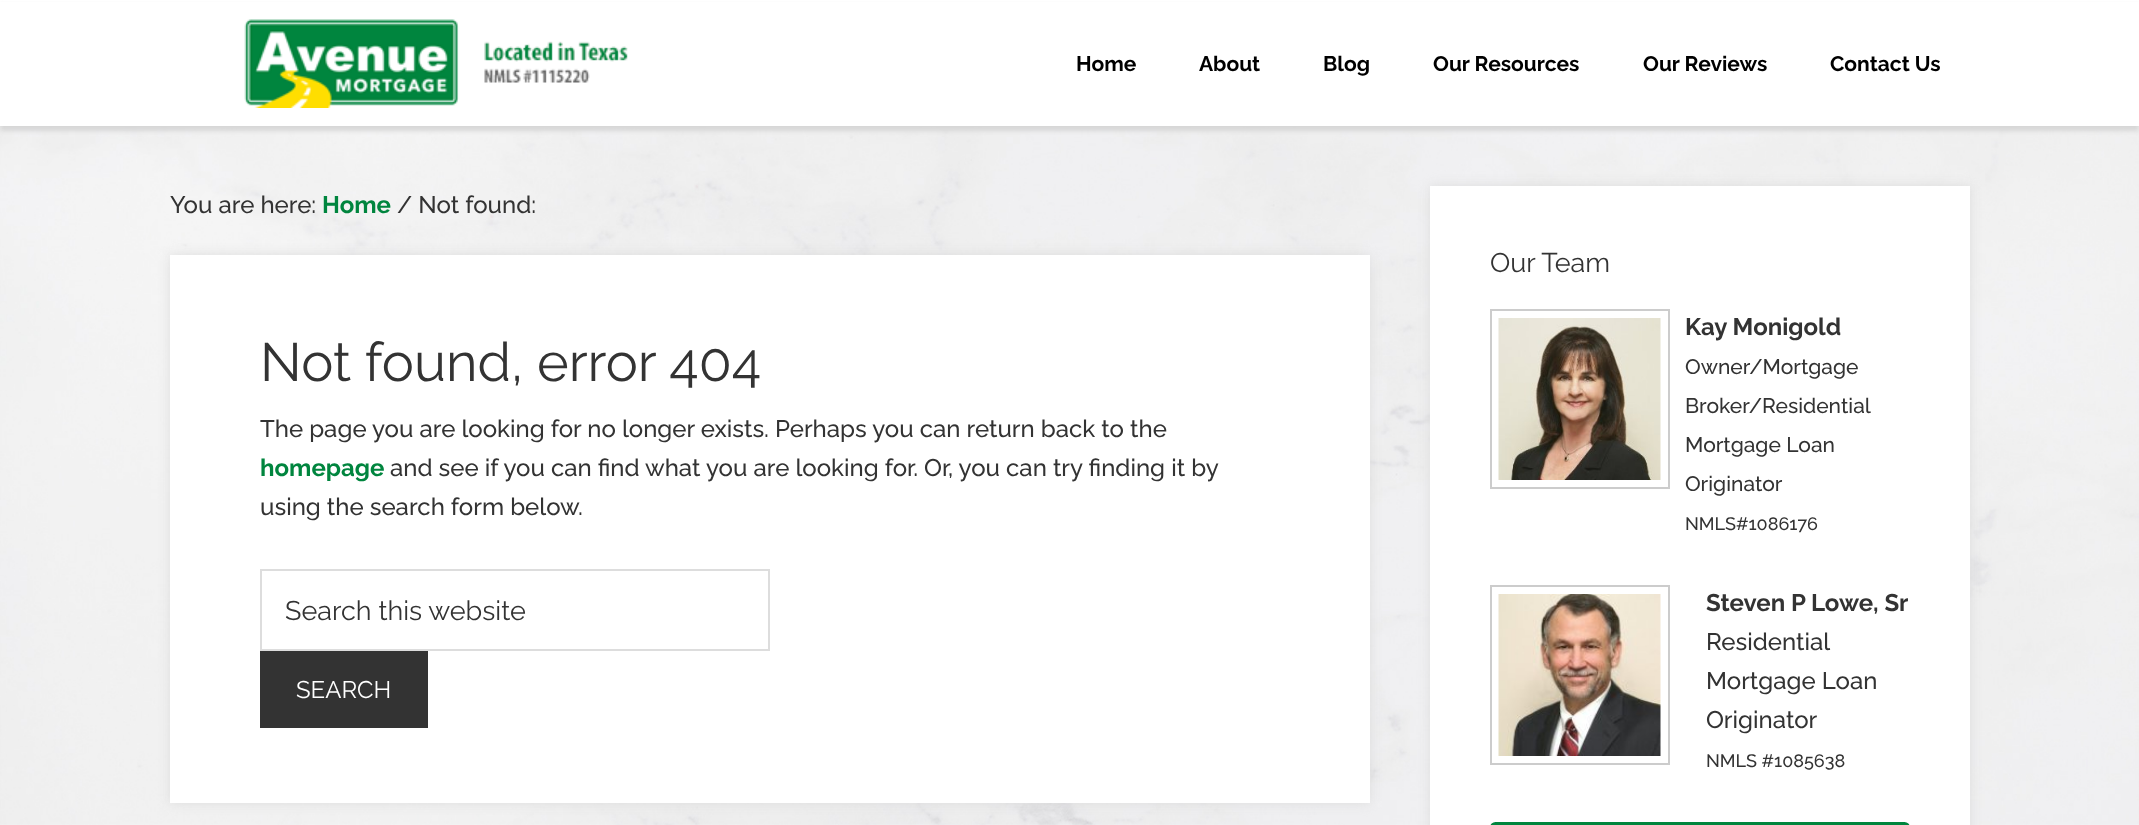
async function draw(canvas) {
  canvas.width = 2139;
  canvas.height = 825;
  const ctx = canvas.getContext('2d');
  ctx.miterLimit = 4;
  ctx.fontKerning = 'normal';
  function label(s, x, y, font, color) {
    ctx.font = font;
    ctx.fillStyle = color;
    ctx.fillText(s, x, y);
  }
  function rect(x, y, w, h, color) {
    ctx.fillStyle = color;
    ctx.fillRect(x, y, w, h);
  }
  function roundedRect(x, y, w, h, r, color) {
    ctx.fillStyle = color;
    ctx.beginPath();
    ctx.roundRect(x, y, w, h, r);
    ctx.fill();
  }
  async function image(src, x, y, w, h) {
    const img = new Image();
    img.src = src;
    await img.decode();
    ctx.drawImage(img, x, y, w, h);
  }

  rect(0, 0, 2139, 825, '#fff');
  await image('assets/img1.png', 0, 126, 2139, 699);
  ctx.fillStyle = '#d7d7d7';
  ctx.filter = 'blur(2px)';
  ctx.beginPath();
  ctx.rect(0, 5, 2139, 126);
  ctx.fill();
  ctx.filter = 'none';
  rect(0, 2, 2139, 124, '#fff');
  await image('assets/img2.png', 244, 19, 384, 89);
  label('Home', 1076, 71, 'bold 21px Raleway', '#000');
  label('About', 1199, 71, 'bold 21px Raleway', '#000');
  label('Blog', 1323, 71, 'bold 21px Raleway', '#000');
  label('Our Resources', 1433, 71, 'bold 21px Raleway', '#000');
  label('Our Reviews', 1643, 71, 'bold 21px Raleway', '#000');
  label('Contact Us', 1830, 71, 'bold 21px Raleway', '#000');
  label('You are here:', 170, 213, '500 24px Raleway', '#333');
  label('Home', 322, 213, 'bold 24px Raleway', '#00853e');
  label('/ Not found:', 397, 213, '500 24px Raleway', '#333');
  ctx.fillStyle = '#ddd';
  ctx.filter = 'blur(6px)';
  ctx.beginPath();
  ctx.rect(170, 255, 1200, 548);
  ctx.fill();
  ctx.filter = 'none';
  rect(170, 255, 1200, 548, '#fff');
  label('Not found, error 404', 260, 381, '54px Raleway', '#333');
  label('The page you are looking for no longer exists. Perhaps you can return back to the', 260, 437, '500 24px Raleway', '#333');
  label('homepage', 260, 476, 'bold 24px Raleway', '#00853e');
  label('and see if you can find what you are looking for. Or, you can try finding it by', 390, 476, '500 24px Raleway', '#333');
  label('using the search form below.', 260, 515, '500 24px Raleway', '#333');
  ctx.strokeStyle = '#ddd';
  ctx.lineWidth = 2;
  ctx.strokeRect(261, 570, 508, 80);
  label('Search this website', 285, 620, '27px Raleway', '#333');
  rect(260, 651, 168, 77, '#333');
  label('SEARCH', 296, 698, '24px Raleway', '#fff');
  ctx.fillStyle = '#ddd';
  ctx.filter = 'blur(6px)';
  ctx.beginPath();
  ctx.rect(1430, 186, 540, 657);
  ctx.fill();
  ctx.filter = 'none';
  rect(1430, 186, 540, 639, '#fff');
  label('Our Team', 1490, 272, '27px Raleway', '#333');
  ctx.strokeStyle = '#ccc';
  ctx.strokeRect(1491, 310, 178, 178);
  await image('assets/img3.png', 1498, 318, 163, 162);
  label('Kay Monigold', 1685, 335, 'bold 24px Raleway', '#333');
  label('Owner/Mortgage', 1685, 374, '500 21px Raleway', '#333');
  label('Broker/Residential', 1685, 413, '500 21px Raleway', '#333');
  label('Mortgage Loan', 1685, 452, '500 21px Raleway', '#333');
  label('Originator', 1685, 491, '500 21px Raleway', '#333');
  label('NMLS#1086176', 1685, 530, '500 18px Raleway', '#333');
  ctx.strokeRect(1491, 586, 178, 178);
  await image('assets/img4.png', 1498, 594, 163, 162);
  label('Steven P Lowe, Sr', 1706, 611, 'bold 24px Raleway', '#333');
  label('Residential', 1706, 650, '500 24px Raleway', '#333');
  label('Mortgage Loan', 1706, 689, '500 24px Raleway', '#333');
  label('Originator', 1706, 728, '500 24px Raleway', '#333');
  label('NMLS #1085638', 1706, 767, '500 18px Raleway', '#333');
  roundedRect(1490, 822, 420, 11, 8, '#00853e');
}

draw(document.querySelector('canvas'));
